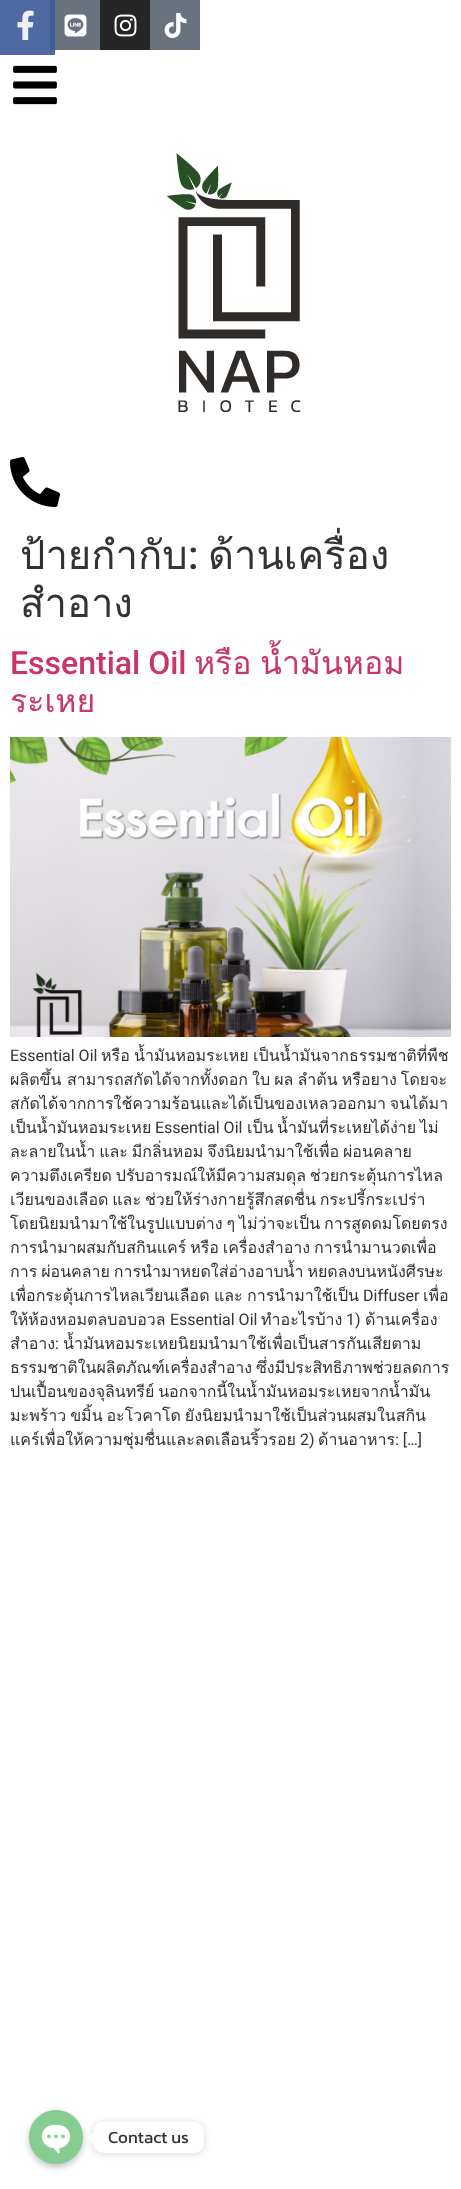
async function draw(canvas) {
  canvas.width = 461;
  canvas.height = 2189;
  const ctx = canvas.getContext('2d');
  ctx.miterLimit = 4;
  ctx.fontKerning = 'normal';
  function label(s, x, y, font, color) {
    ctx.font = font;
    ctx.fillStyle = color;
    ctx.fillText(s, x, y);
  }
  function rect(x, y, w, h, color) {
    ctx.fillStyle = color;
    ctx.fillRect(x, y, w, h);
  }
  function roundedRect(x, y, w, h, r, color) {
    ctx.fillStyle = color;
    ctx.beginPath();
    ctx.roundRect(x, y, w, h, r);
    ctx.fill();
  }
  async function image(src, x, y, w, h) {
    const img = new Image();
    img.src = src;
    await img.decode();
    ctx.drawImage(img, x, y, w, h);
  }
  let path;

  rect(0, 0, 461, 2189, '#fff');
  rect(0, 0, 55, 55, '#4f6aa2');
  await image('assets/img1.png', 17, 10, 17, 30);
  rect(55, 0, 45, 50, '#69727d');
  rect(50, 0, 5, 50, '#405c95');
  await image('assets/img2.png', 64, 14, 23, 23);
  rect(100, 0, 50, 50, '#262626');
  await image('assets/img3.png', 114, 14, 23, 23);
  rect(150, 0, 50, 50, '#69727d');
  await image('assets/img4.png', 164, 13, 23, 25);
  await image('assets/img5.png', 13, 65, 44, 40);
  await image('assets/img6.png', 167, 153, 134, 259);
  await image('assets/img7.png', 10, 457, 50, 50);
  label('ป้ายกำกับ', 20, 569, '40px Loma', '#333');
  label(':', 188, 569, '500 40px Roboto', '#333');
  label('ด้านเครื่อง', 208, 569, '40px Loma', '#333');
  label('สำอาง', 20, 617, '40px Loma', '#333');
  label('Essential Oil', 10, 674, '500 32px Roboto', '#c36');
  label('หรือ', 194, 674, '32px Loma', '#c36');
  label('น้ำมันหอม', 260, 674, '32px Loma', '#c36');
  label('ระเหย', 10, 712, '32px Loma', '#c36');
  await image('assets/img8.png', 10, 737, 441, 300);
  label('Essential Oil', 10, 1061, '16px Roboto', '#333');
  label('หรือ', 101, 1061, '16px Loma', '#333');
  label('น้ำมันหอมระเหย', 134, 1061, '16px Loma', '#333');
  label('เป็นน้ำมันจากธรรมชาติที่พืช', 253, 1061, '16px Loma', '#333');
  label('ผลิตขึ้น', 10, 1085, '16px Loma', '#333');
  ctx.wordSpacing = '-1.25px';
  label('สามารถสกัดได้จากทั้งดอก ใบ ผล ลำต้น หรือยาง โดยจะ', 67, 1085, '16px Loma', '#333');
  ctx.wordSpacing = '-1.5px';
  label('สกัดได้จากการใช้ความร้อนและได้เป็นของเหลวออกมา จนได้มา', 10, 1109, '16px Loma', '#333');
  ctx.wordSpacing = '0px';
  label('เป็นน้ำมันหอมระเหย', 10, 1133, '16px Loma', '#333');
  label('Essential Oil', 155, 1133, '16px Roboto', '#333');
  label('เป็น', 247, 1133, '16px Loma', '#333');
  label('น้ำมันที่ระเหยได้ง่าย', 277, 1133, '16px Loma', '#333');
  label('ไม่', 420, 1133, '16px Loma', '#333');
  ctx.wordSpacing = '-1.5px';
  label('ละลายในน้ำ และ มีกลิ่นหอม จึงนิยมนำมาใช้เพื่อ ผ่อนคลาย', 10, 1157, '16px Loma', '#333');
  label('ความตึงเครียด ปรับอารมณ์ให้มีความสมดุล ช่วยกระตุ้นการไหล', 10, 1181, '16px Loma', '#333');
  label('เวียนของเลือด และ ช่วยให้ร่างกายรู้สึกสดชื่น กระปรี้กระเปร่า', 10, 1205, '16px Loma', '#333');
  label('โดยนิยมนำมาใช้ในรูปแบบต่าง ๆ ไม่ว่าจะเป็น การสูดดมโดยตรง', 10, 1229, '16px Loma', '#333');
  label('การนำมาผสมกับสกินแคร์ หรือ เครื่องสำอาง การนำมานวดเพื่อ', 10, 1253, '16px Loma', '#333');
  label('การ ผ่อนคลาย การนำมาหยดใส่อ่างอาบน้ำ หยดลงบนหนังศีรษะ', 10, 1277, '16px Loma', '#333');
  ctx.wordSpacing = '-1px';
  label('เพื่อกระตุ้นการไหลเวียนเลือด และ การนำมาใช้เป็น', 10, 1301, '16px Loma', '#333');
  ctx.wordSpacing = '0px';
  label('Diffuser', 363, 1301, '16px Roboto', '#333');
  label('เพื่อ', 423, 1301, '16px Loma', '#333');
  label('ให้ห้องหอมตลบอบอวล', 10, 1325, '16px Loma', '#333');
  label('Essential Oil', 170, 1325, '16px Roboto', '#333');
  label('ทำอะไรบ้าง', 261, 1325, '16px Loma', '#333');
  label('1)', 346, 1325, '16px Roboto', '#333');
  label('ด้านเครื่อง', 365, 1325, '16px Loma', '#333');
  label('สำอาง', 10, 1349, '16px Loma', '#333');
  label(':', 55, 1349, '16px Roboto', '#333');
  label('น้ำมันหอมระเหยนิยมนำมาใช้เพื่อเป็นสารกันเสียตาม', 63, 1349, '16px Loma', '#333');
  ctx.wordSpacing = '-1.5px';
  label('ธรรมชาติในผลิตภัณฑ์เครื่องสำอาง ซึ่งมีประสิทธิภาพช่วยลดการ', 10, 1373, '16px Loma', '#333');
  label('ปนเปื้อนของจุลินทรีย์ นอกจากนี้ในน้ำมันหอมระเหยจากน้ำมัน', 10, 1397, '16px Loma', '#333');
  label('มะพร้าว ขมิ้น อะโวคาโด ยังนิยมนำมาใช้เป็นส่วนผสมในสกิน', 10, 1421, '16px Loma', '#333');
  ctx.wordSpacing = '0px';
  label('แคร์เพื่อให้ความชุ่มชื่นและลดเลือนริ้วรอย', 10, 1445, '16px Loma', '#333');
  label('2)', 300, 1445, '16px Roboto', '#333');
  label('ด้านอาหาร', 318, 1445, '16px Loma', '#333');
  label(': […]', 395, 1445, '16px Roboto', '#333');
  ctx.fillStyle = '#00000026';
  ctx.filter = 'blur(4px)';
  ctx.beginPath();
  ctx.roundRect(93, 2123, 111, 31, 10);
  ctx.fill();
  ctx.filter = 'none';
  ctx.fillStyle = '#fff';
  path = new Path2D('M93 2132.5V2142.5L88 2137.5Z');
  ctx.fill(path);
  ctx.fillStyle = '#00000040';
  ctx.filter = 'blur(3px)';
  ctx.beginPath();
  ctx.roundRect(29, 2113, 54, 54, 27);
  ctx.fill();
  ctx.filter = 'none';
  await image('assets/img9.png', 29, 2110, 54, 54);
  roundedRect(93, 2122, 111, 31, 10, '#fff');
  label('Contact us', 108, 2143, '17px Kanit', '#333');
}

draw(document.querySelector('canvas'));
